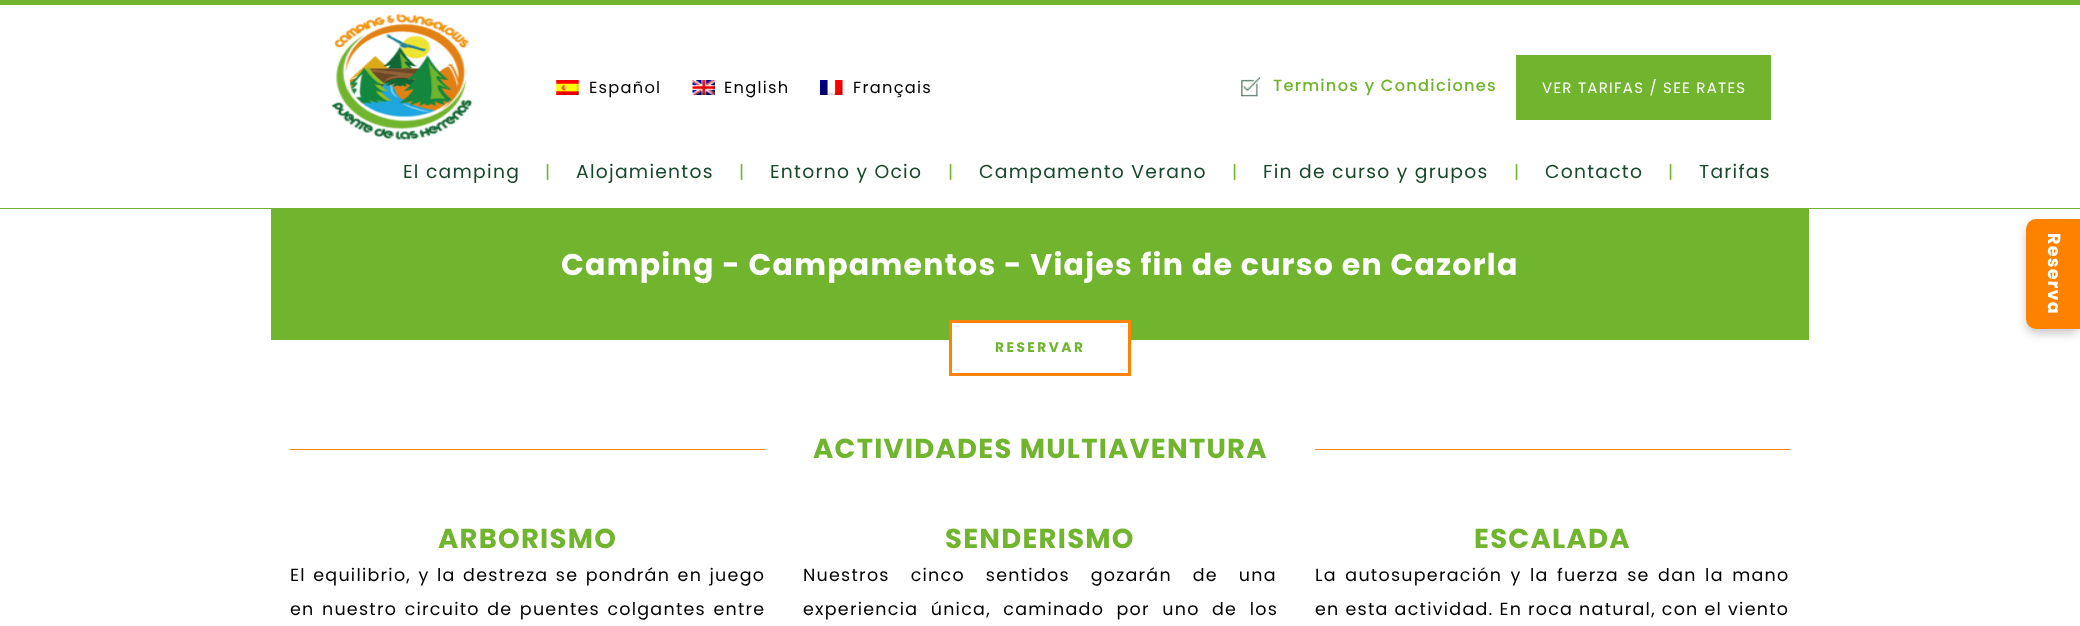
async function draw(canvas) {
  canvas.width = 2080;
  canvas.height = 626;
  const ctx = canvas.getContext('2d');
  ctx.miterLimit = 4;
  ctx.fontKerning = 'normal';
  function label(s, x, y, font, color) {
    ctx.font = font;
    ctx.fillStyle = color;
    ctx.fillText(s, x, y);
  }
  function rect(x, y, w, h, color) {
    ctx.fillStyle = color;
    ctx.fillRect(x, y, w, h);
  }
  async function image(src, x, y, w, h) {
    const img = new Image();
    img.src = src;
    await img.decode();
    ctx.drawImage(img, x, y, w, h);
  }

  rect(0, 0, 2080, 626, '#fff');
  rect(0, 0, 2080, 5, '#71b42e');
  await image('assets/img1.png', 556, 80, 23, 15);
  ctx.letterSpacing = '1.25px';
  label('Español', 589, 93, '16.25px Poppins', '#000');
  await image('assets/img2.png', 692, 80, 23, 15);
  label('English', 724, 93, '16.25px Poppins', '#000');
  await image('assets/img3.png', 820, 80, 23, 15);
  label('Français', 853, 93, '16.25px Poppins', '#000');
  await image('assets/img4.png', 1241, 77, 19, 20);
  label('Terminos y Condiciones', 1273, 91, '500 16.25px Poppins', '#71b42e');
  rect(1516, 55, 255, 65, '#71b42e');
  label('VER TARIFAS / SEE RATES', 1542, 93, '15px Poppins', '#fff');
  rect(0, 208, 2080, 1, '#71b42e');
  await image('assets/img5.png', 331, 13, 142, 128);
  label('El camping', 403, 178, '18.75px Poppins', '#17482a');
  label('|', 545, 178, '17.5px Poppins', '#71b42e');
  label('Alojamientos', 576, 178, '18.75px Poppins', '#17482a');
  label('|', 739, 178, '17.5px Poppins', '#71b42e');
  label('Entorno y Ocio', 770, 178, '18.75px Poppins', '#17482a');
  label('|', 948, 178, '17.5px Poppins', '#71b42e');
  label('Campamento Verano', 979, 178, '18.75px Poppins', '#17482a');
  label('|', 1232, 178, '17.5px Poppins', '#71b42e');
  label('Fin de curso y grupos', 1263, 178, '18.75px Poppins', '#17482a');
  label('|', 1514, 178, '17.5px Poppins', '#71b42e');
  label('Contacto', 1545, 178, '18.75px Poppins', '#17482a');
  label('|', 1668, 178, '17.5px Poppins', '#71b42e');
  label('Tarifas', 1699, 178, '18.75px Poppins', '#17482a');
  rect(271, 209, 1538, 131, '#71b42e');
  label('Camping - Campamentos - Viajes fin de curso en Cazorla', 561, 275, 'bold 30px Poppins', '#fff');
  rect(952, 323, 176, 17, '#fff');
  ctx.strokeStyle = '#fd8200';
  ctx.lineWidth = 3;
  ctx.strokeRect(950.5, 321.5, 179, 53);
  ctx.letterSpacing = '2.5px';
  label('RESERVAR', 995, 352, 'bold 13.75px Poppins', '#71b42e');
  rect(290, 449, 475, 1, '#fd8301');
  ctx.letterSpacing = '1.25px';
  label('ACTIVIDADES MULTIAVENTURA', 813, 458, 'bold 27.5px Poppins', '#71b42e');
  rect(1315, 449, 475, 1, '#fd8301');
  label('ARBORISMO', 438, 548, 'bold 27.5px Poppins', '#71b42e');
  ctx.wordSpacing = '1.5px';
  label('El equilibrio, y la destreza se pondrán en juego', 290, 581, '17.5px Poppins', '#000');
  label('en nuestro circuito de puentes colgantes entre', 290, 615, '17.5px Poppins', '#000');
  ctx.wordSpacing = '0px';
  label('SENDERISMO', 945, 548, 'bold 27.5px Poppins', '#71b42e');
  ctx.wordSpacing = '15px';
  label('Nuestros cinco sentidos gozarán de una', 803, 581, '17.5px Poppins', '#000');
  ctx.wordSpacing = '6.5px';
  label('experiencia única, caminado por uno de los', 803, 615, '17.5px Poppins', '#000');
  ctx.wordSpacing = '0px';
  label('ESCALADA', 1474, 548, 'bold 27.5px Poppins', '#71b42e');
  ctx.wordSpacing = '2.5px';
  label('La autosuperación y la fuerza se dan la mano', 1315, 581, '17.5px Poppins', '#000');
  ctx.wordSpacing = '0px';
  label('en esta actividad. En roca natural, con el viento', 1315, 615, '17.5px Poppins', '#000');
  ctx.fillStyle = '#00000033';
  ctx.filter = 'blur(4px)';
  ctx.beginPath();
  ctx.roundRect(2026, 224, 54, 110, 10);
  ctx.fill();
  ctx.filter = 'none';
  ctx.fillStyle = '#fd8200';
  ctx.beginPath();
  ctx.roundRect(2026, 219, 54, 110, [10, 0, 0, 10]);
  ctx.fill();
  ctx.font = 'bold 17.5px Poppins';
  ctx.fillStyle = '#fff';
  ctx.save();
  ctx.translate(2048, 233);
  ctx.rotate(90 * Math.PI / 180);
  ctx.fillText('Reserva', 0, 0);
  ctx.restore();
}

draw(document.querySelector('canvas'));
